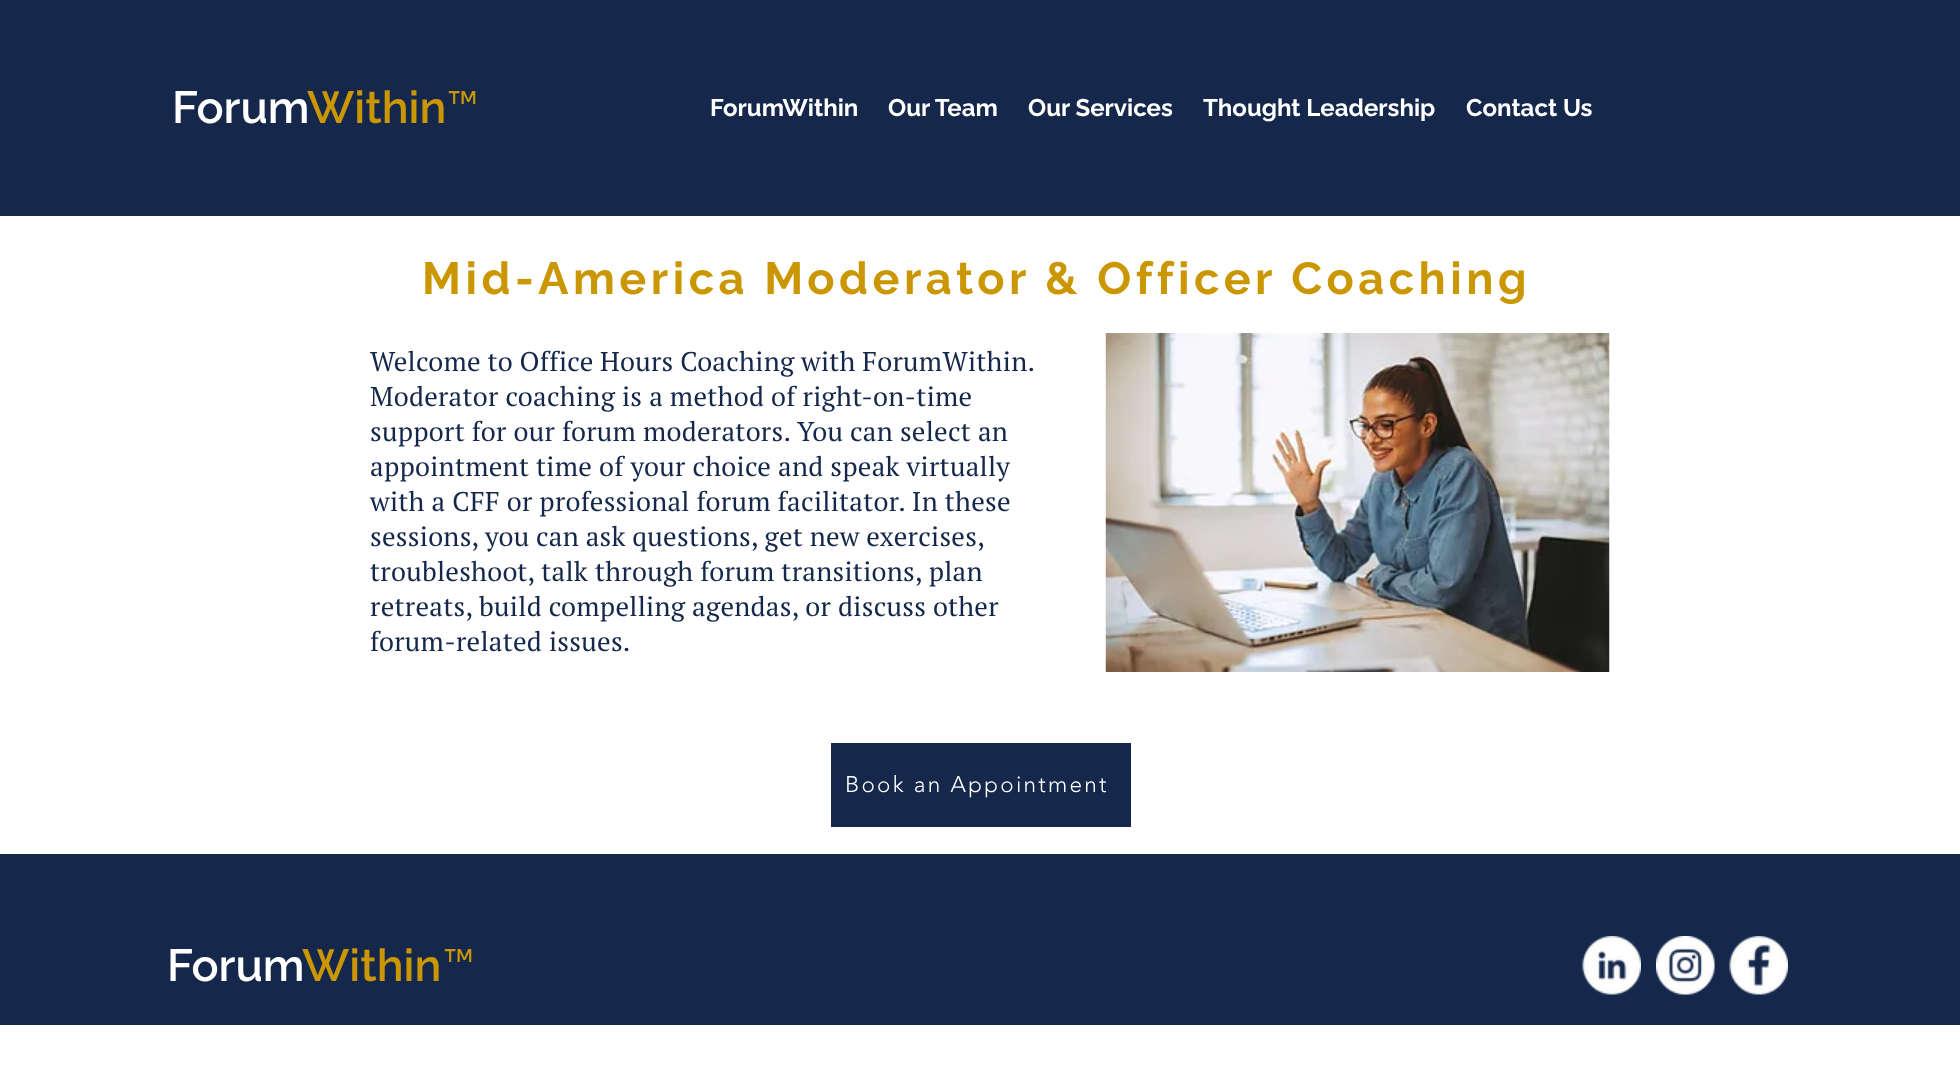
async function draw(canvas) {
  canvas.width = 1960;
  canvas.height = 1076;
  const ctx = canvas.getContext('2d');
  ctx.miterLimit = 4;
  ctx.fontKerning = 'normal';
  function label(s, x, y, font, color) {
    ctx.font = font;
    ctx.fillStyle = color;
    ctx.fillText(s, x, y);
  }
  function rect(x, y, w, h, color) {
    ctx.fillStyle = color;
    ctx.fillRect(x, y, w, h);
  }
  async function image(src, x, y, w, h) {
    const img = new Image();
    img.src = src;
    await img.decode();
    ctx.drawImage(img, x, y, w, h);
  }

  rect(0, 0, 1960, 1076, '#fff');
  rect(0, 0, 1960, 216, '#15284b');
  label('Forum', 172, 123, '600 45px Raleway', '#fff');
  label('Within', 307, 123, '600 45px Raleway', '#ca9703');
  label('™', 446, 123, '45px Raleway', '#ca9703');
  label('ForumWithin', 710, 116, 'bold 24px Raleway', '#fff');
  label('Our Team', 888, 116, 'bold 24px Raleway', '#fff');
  label('Our Services', 1028, 116, 'bold 24px Raleway', '#fff');
  label('Thought Leadership', 1203, 116, 'bold 24px Raleway', '#fff');
  label('Contact Us', 1466, 116, 'bold 24px Raleway', '#fff');
  ctx.letterSpacing = '4.5px';
  label('Mid-America Moderator & Officer Coaching', 422, 294, 'bold 45px Raleway', '#ca9703');
  ctx.letterSpacing = '0.27px';
  ctx.wordSpacing = '-0.25px';
  label('Welcome to Office Hours Coaching with ForumWithin.', 370, 371, '27px PT Serif', '#15284b');
  ctx.wordSpacing = '0px';
  label('Moderator coaching is a method of right-on-time', 370, 406, '27px PT Serif', '#15284b');
  label('support for our forum moderators. You can select an', 370, 441, '27px PT Serif', '#15284b');
  label('appointment time of your choice and speak virtually', 370, 476, '27px PT Serif', '#15284b');
  label('with a CFF or professional forum facilitator. In these', 370, 511, '27px PT Serif', '#15284b');
  ctx.wordSpacing = '-0.25px';
  label('sessions, you can ask questions, get new exercises,', 370, 546, '27px PT Serif', '#15284b');
  ctx.wordSpacing = '0px';
  label('troubleshoot, talk through forum transitions, plan', 370, 581, '27px PT Serif', '#15284b');
  label('retreats, build compelling agendas, or discuss other', 370, 616, '27px PT Serif', '#15284b');
  label('forum-related issues.', 370, 651, '27px PT Serif', '#15284b');
  await image('assets/img1.png', 1105, 333, 505, 339);
  rect(831, 743, 300, 84, '#15284b');
  ctx.letterSpacing = '2.25px';
  label('Book an Appointment', 845, 792, '300 22.5px "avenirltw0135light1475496"', '#fff');
  rect(0, 854, 1960, 171, '#15284b');
  ctx.letterSpacing = '0px';
  label('Forum', 167, 981, '600 45px Raleway', '#fff');
  label('Within', 302, 981, '600 45px Raleway', '#ca9703');
  label('™', 442, 981, '45px Raleway', '#ca9703');
  await image('assets/img2.png', 1582, 936, 59, 59);
  await image('assets/img3.png', 1656, 936, 59, 59);
  await image('assets/img4.png', 1729, 936, 59, 59);
}

draw(document.querySelector('canvas'));
